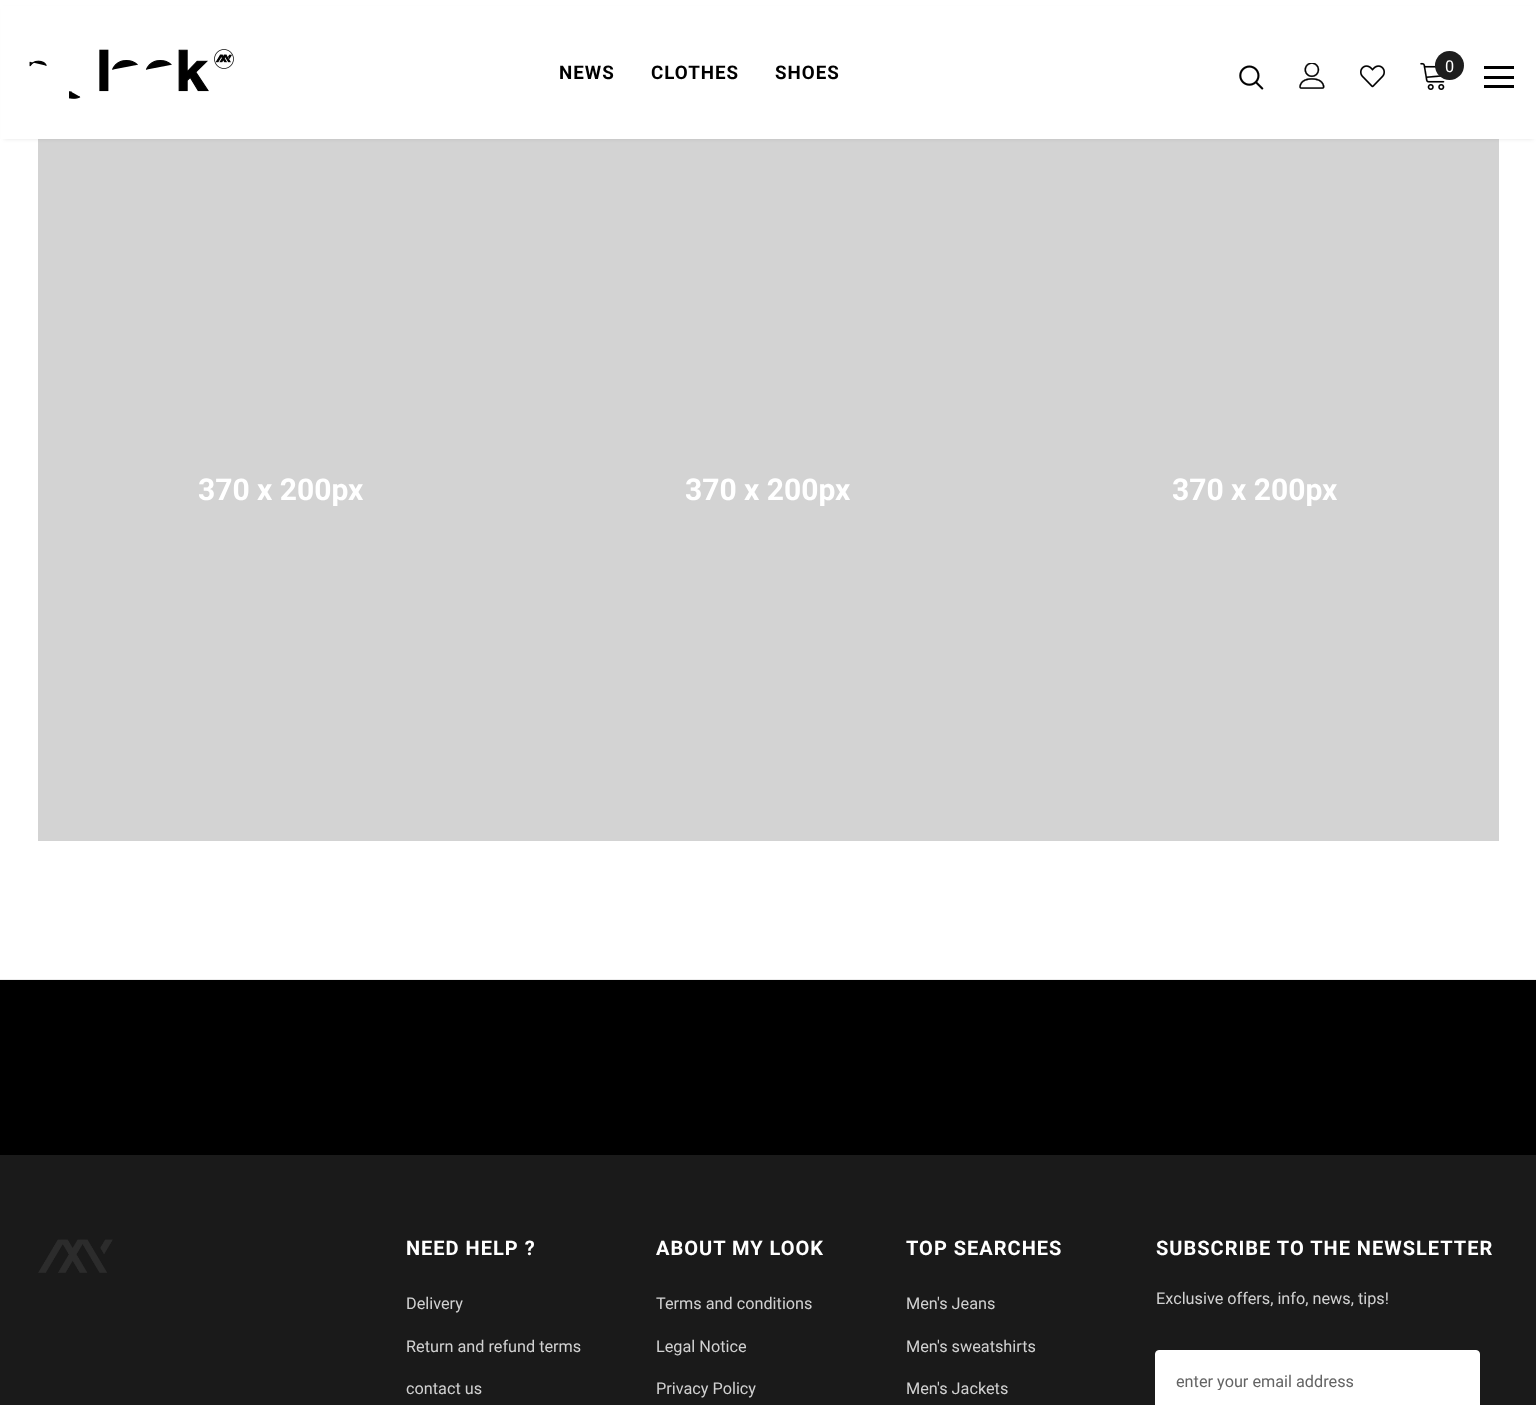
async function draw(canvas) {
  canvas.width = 1536;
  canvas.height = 1405;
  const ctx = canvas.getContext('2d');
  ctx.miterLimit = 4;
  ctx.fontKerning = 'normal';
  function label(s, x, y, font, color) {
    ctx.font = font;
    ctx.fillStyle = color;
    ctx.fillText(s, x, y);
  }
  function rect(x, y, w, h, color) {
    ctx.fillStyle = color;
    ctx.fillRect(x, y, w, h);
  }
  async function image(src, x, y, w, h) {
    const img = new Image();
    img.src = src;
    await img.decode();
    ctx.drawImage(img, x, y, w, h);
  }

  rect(0, 0, 1536, 1405, '#fff');
  ctx.fillStyle = '#0000001a';
  ctx.filter = 'blur(2px)';
  ctx.beginPath();
  ctx.rect(4, 9, 1529, 130);
  ctx.fill();
  ctx.filter = 'none';
  rect(1, 6, 1535, 133, '#fff');
  await image('assets/img1.png', 29, 49, 205, 50);
  ctx.letterSpacing = '1px';
  label('NEWS', 559, 79, 'bold 18.75px Roboto', '#000');
  label('CLOTHES', 651, 79, 'bold 18.75px Roboto', '#000');
  label('SHOES', 775, 79, 'bold 18.75px Roboto', '#000');
  await image('assets/img2.png', 1239, 65, 25, 25);
  await image('assets/img3.png', 1299, 63, 26, 26);
  await image('assets/img4.png', 1360, 65, 25, 23);
  await image('assets/img5.png', 1420, 62, 25, 28);
  ctx.fillStyle = '#1e1e1e';
  ctx.beginPath();
  ctx.arc(1449.5, 65.5, 14.5, 0, 2 * Math.PI);
  ctx.fill();
  ctx.letterSpacing = '0px';
  label('0', 1445, 72, '16.25px Roboto', '#fff');
  rect(1484, 66, 30, 3, '#000');
  rect(1484, 76, 30, 3, '#000');
  rect(1484, 85, 30, 3, '#000');
  rect(38, 139, 487, 702, '#23232333');
  label('370 x 200px', 198, 500, 'bold 30px Roboto', '#fff');
  rect(525, 139, 486, 702, '#23232333');
  label('370 x 200px', 685, 500, 'bold 30px Roboto', '#fff');
  rect(1011, 139, 488, 702, '#23232333');
  label('370 x 200px', 1172, 500, 'bold 30px Roboto', '#fff');
  rect(0, 980, 1536, 175, '#000');
  rect(0, 979, 1536, 1, '#ebebeb');
  rect(0, 1155, 1536, 250, '#1a1a1a');
  await image('assets/img6.png', 38, 1239, 75, 34);
  ctx.letterSpacing = '1px';
  label('NEED HELP ?', 406, 1255, 'bold 20px Roboto', '#fff');
  ctx.letterSpacing = '0px';
  label('Delivery', 406, 1309, '16.25px Roboto', '#d1d1d1');
  label('Return and refund terms', 406, 1352, '16.25px Roboto', '#d1d1d1');
  label('contact us', 406, 1394, '16.25px Roboto', '#d1d1d1');
  ctx.letterSpacing = '1px';
  label('ABOUT MY LOOK', 656, 1255, 'bold 20px Roboto', '#fff');
  ctx.letterSpacing = '0px';
  label('Terms and conditions', 656, 1309, '16.25px Roboto', '#d1d1d1');
  label('Legal Notice', 656, 1352, '16.25px Roboto', '#d1d1d1');
  label('Privacy Policy', 656, 1394, '16.25px Roboto', '#d1d1d1');
  ctx.letterSpacing = '1px';
  label('TOP SEARCHES', 906, 1255, 'bold 20px Roboto', '#fff');
  ctx.letterSpacing = '0px';
  label('Men\'s Jeans', 906, 1309, '16.25px Roboto', '#d1d1d1');
  label('Men\'s sweatshirts', 906, 1352, '16.25px Roboto', '#d1d1d1');
  label('Men\'s Jackets', 906, 1394, '16.25px Roboto', '#d1d1d1');
  ctx.letterSpacing = '1px';
  label('SUBSCRIBE TO THE NEWSLETTER', 1156, 1255, 'bold 20px Roboto', '#fff');
  ctx.letterSpacing = '0px';
  label('Exclusive offers, info, news, tips!', 1156, 1304, '16.25px Roboto', '#d1d1d1');
  ctx.fillStyle = '#fff';
  ctx.beginPath();
  ctx.roundRect(1155.5, 1350.5, 324, 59, 3.5);
  ctx.fill();
  ctx.strokeStyle = '#fff';
  ctx.stroke();
  ctx.save();
  ctx.beginPath();
  ctx.rect(1175, 1371, 285, 19);
  ctx.clip();
  label('enter your email address', 1176, 1387, '16.25px Roboto', '#646464');
  ctx.restore();
}

draw(document.querySelector('canvas'));
